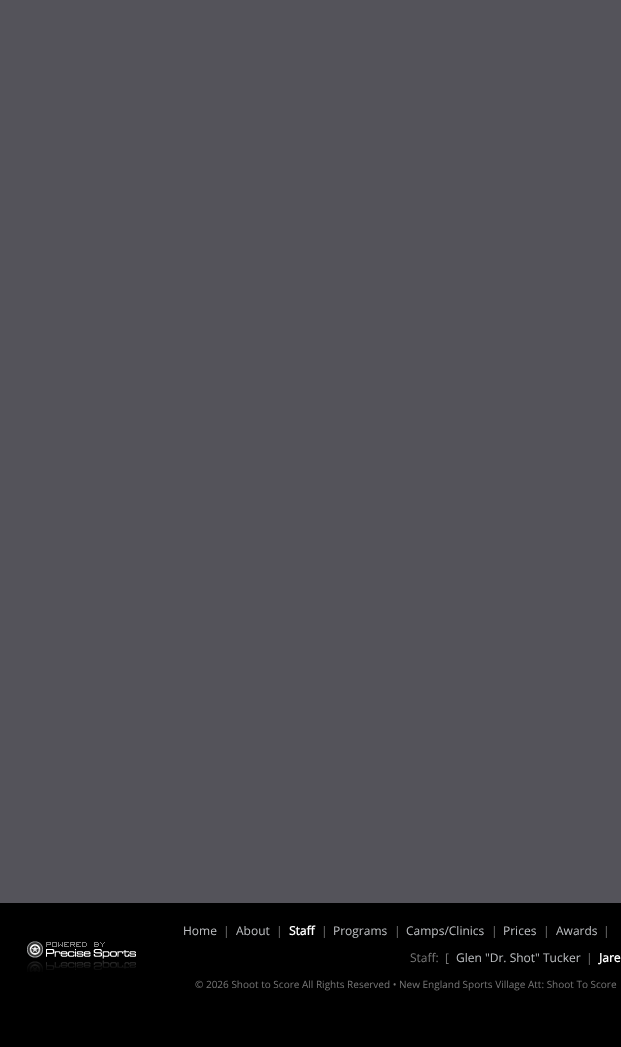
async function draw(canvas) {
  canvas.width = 621;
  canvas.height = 1047;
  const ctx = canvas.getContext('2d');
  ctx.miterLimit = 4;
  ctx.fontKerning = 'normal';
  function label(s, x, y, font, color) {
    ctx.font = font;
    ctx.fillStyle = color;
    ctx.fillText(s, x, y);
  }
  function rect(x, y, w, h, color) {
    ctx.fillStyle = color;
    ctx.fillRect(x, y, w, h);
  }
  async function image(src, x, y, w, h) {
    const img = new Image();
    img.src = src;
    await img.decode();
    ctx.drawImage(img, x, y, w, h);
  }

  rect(0, 0, 621, 1047, '#000');
  rect(0, 0, 621, 903, '#54535a');
  await image('assets/img1.png', 27, 941, 109, 31);
  label('Home', 183, 935, '12px Open Sans', '#bec0c3');
  label('|', 223, 935, '12px Open Sans', '#787878');
  label('About', 236, 935, '12px Open Sans', '#bec0c3');
  label('|', 276, 935, '12px Open Sans', '#787878');
  label('Staff', 289, 935, 'bold 12px Open Sans', '#fff');
  label('|', 321, 935, '12px Open Sans', '#787878');
  label('Programs', 333, 935, '12px Open Sans', '#bec0c3');
  label('|', 394, 935, '12px Open Sans', '#787878');
  label('Camps/Clinics', 406, 935, '12px Open Sans', '#bec0c3');
  label('|', 491, 935, '12px Open Sans', '#787878');
  label('Prices', 503, 935, '12px Open Sans', '#bec0c3');
  label('|', 543, 935, '12px Open Sans', '#787878');
  label('Awards', 556, 935, '12px Open Sans', '#bec0c3');
  label('|', 603, 935, '12px Open Sans', '#787878');
  label('Staff:', 410, 962, '12px Open Sans', '#787878');
  label('[', 445, 962, '12px Open Sans', '#787878');
  label('Glen "Dr. Shot" Tucker', 456, 962, '12px Open Sans', '#bec0c3');
  label('|', 586, 962, '12px Open Sans', '#787878');
  label('Jare', 599, 962, 'bold 12px Open Sans', '#fff');
  label('© 2026 Shoot to Score All Rights Reserved • New England Sports Village Att: Shoot To Score', 195, 988, '10px Open Sans', '#787878');
}

draw(document.querySelector('canvas'));
